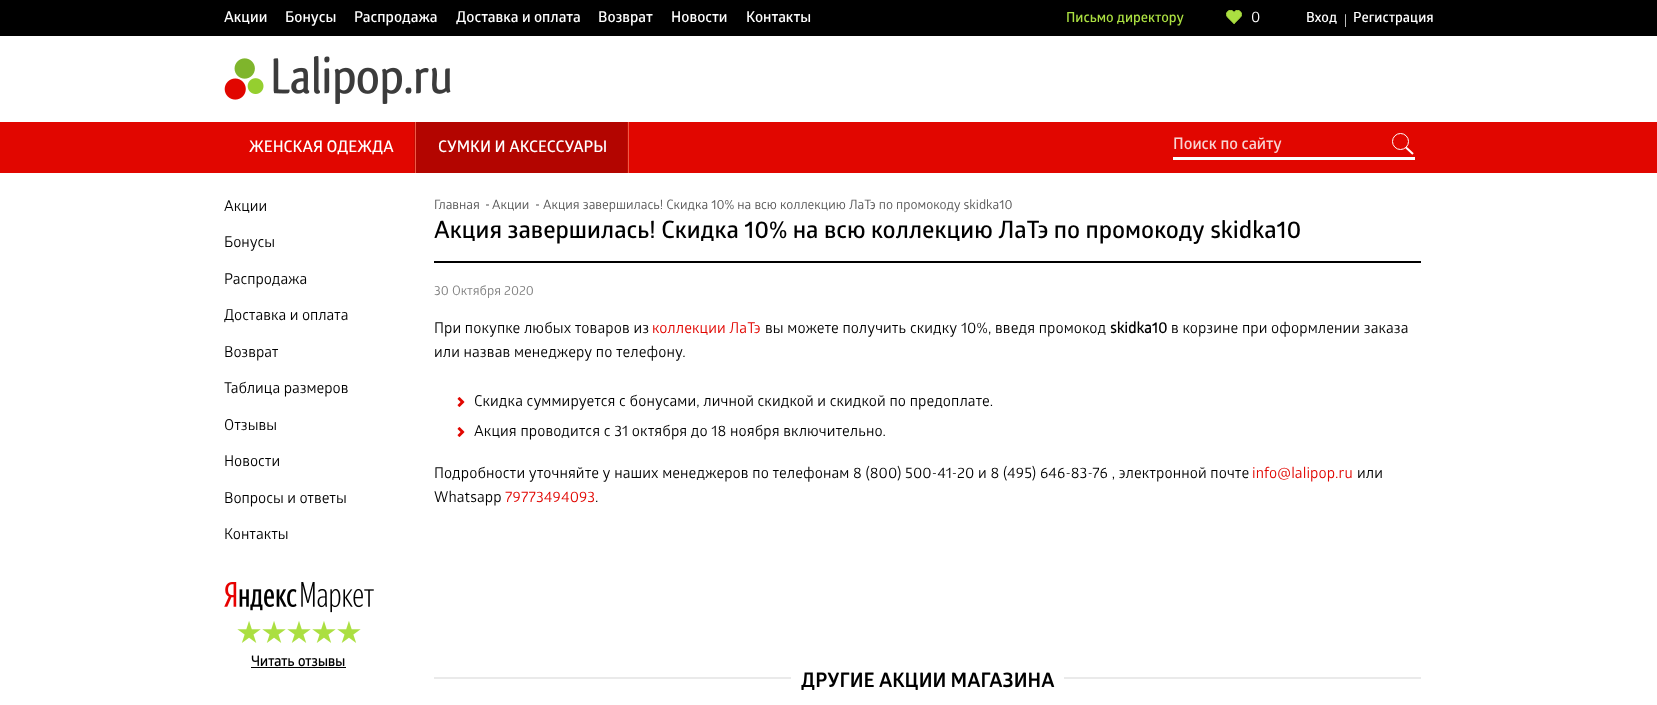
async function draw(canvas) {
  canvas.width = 1657;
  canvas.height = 705;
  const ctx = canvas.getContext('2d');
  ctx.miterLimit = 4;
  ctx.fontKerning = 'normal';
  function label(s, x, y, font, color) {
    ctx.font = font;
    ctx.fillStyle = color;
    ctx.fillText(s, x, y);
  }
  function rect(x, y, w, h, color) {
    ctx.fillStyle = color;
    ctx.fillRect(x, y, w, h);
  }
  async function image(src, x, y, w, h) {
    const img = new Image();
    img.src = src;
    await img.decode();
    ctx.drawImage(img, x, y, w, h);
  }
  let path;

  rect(0, 0, 1657, 705, '#fff');
  rect(0, 0, 1657, 36, '#000');
  label('Акции', 224, 22, 'bold 15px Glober', '#fff');
  label('Бонусы', 285, 22, 'bold 15px Glober', '#fff');
  label('Распродажа', 354, 22, 'bold 15px Glober', '#fff');
  label('Доставка и оплата', 456, 22, 'bold 15px Glober', '#fff');
  label('Возврат', 598, 22, 'bold 15px Glober', '#fff');
  label('Новости', 671, 22, 'bold 15px Glober', '#fff');
  label('Контакты', 746, 22, 'bold 15px Glober', '#fff');
  label('Письмо директору', 1066, 22, 'bold 14px Glober', '#abdf41');
  await image('assets/img1.png', 1226, 10, 16, 14);
  label('0', 1251, 22, '15px Glober', '#fff');
  label('Вход', 1306, 22, 'bold 14px Glober', '#fff');
  label('|', 1344, 24, '14px Liberation Serif', '#fff');
  label('Регистрация', 1353, 22, 'bold 14px Glober', '#fff');
  await image('assets/img2.png', 224, 56, 227, 48);
  rect(0, 122, 1657, 51, '#e10600');
  label('ЖЕНСКАЯ ОДЕЖДА', 249, 152, '600 16px Glober', '#fff');
  rect(414, 122, 1, 51, '#c60b02');
  rect(415, 122, 1, 51, '#ef5a46');
  rect(416, 122, 211, 51, '#b30500');
  label('СУМКИ И АКСЕССУАРЫ', 438, 152, '600 16px Glober', '#fff');
  rect(627, 122, 1, 51, '#c60b02');
  rect(628, 122, 1, 51, '#ef5a46');
  rect(1173, 157, 242, 3, '#fcffff');
  label('Поиск по сайту', 1173, 149, 'bold 16px Glober', '#f8d4d3');
  ctx.beginPath();
  ctx.arc(1400.5, 141.5, 8, 0, 2 * Math.PI);
  ctx.strokeStyle = '#fff';
  ctx.stroke();
  path = new Path2D('M1406 147.5L1413 154');
  ctx.lineWidth = 2;
  ctx.stroke(path);
  label('Акции', 224, 211, '15px Glober', '#000');
  label('Бонусы', 224, 247, '15px Glober', '#000');
  label('Распродажа', 224, 284, '15px Glober', '#000');
  label('Доставка и оплата', 224, 320, '15px Glober', '#000');
  label('Возврат', 224, 357, '15px Glober', '#000');
  label('Таблица размеров', 224, 393, '15px Glober', '#000');
  label('Отзывы', 224, 430, '15px Glober', '#000');
  label('Новости', 224, 466, '15px Glober', '#000');
  label('Вопросы и ответы', 224, 503, '15px Glober', '#000');
  label('Контакты', 224, 539, '15px Glober', '#000');
  await image('assets/img3.png', 224, 582, 150, 61);
  label('Читать отзывы', 251, 666, 'bold 14px "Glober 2"', '#000');
  rect(251, 667, 95, 1, '#000');
  label('Главная', 434, 209, '13px Glober', '#555');
  label('-', 485, 209, 'bold 13px "Glober 2"', '#555');
  label('Акции', 492, 209, '13px Glober', '#555');
  label('-', 535, 209, 'bold 13px "Glober 2"', '#555');
  label('Акция завершилась! Скидка 10% на всю коллекцию ЛаТэ по промокоду skidka10', 543, 209, '13px Glober', '#555');
  rect(434, 261, 987, 2, '#000');
  label('Акция завершилась! Скидка 10% на всю коллекцию ЛаТэ по промокоду skidka10', 434, 238, '600 24px Glober', '#000');
  label('30 Октября 2020', 434, 295, '13px Glober', '#808080');
  ctx.letterSpacing = '0.1px';
  label('При покупке любых товаров из', 434, 333, '15px Glober', '#000');
  label('коллекции ЛаТэ', 652, 333, '15px Glober', '#e10600');
  label('вы можете получить скидку 10%, введя промокод', 765, 333, '15px Glober', '#000');
  label('skidka10', 1110, 333, 'bold 15px "Glober 2"', '#000');
  label('в корзине при оформлении заказа', 1171, 333, '15px Glober', '#000');
  label('или назвав менеджеру по телефону.', 434, 357, '15px Glober', '#000');
  await image('assets/img4.png', 457, 397, 8, 10);
  label('Скидка суммируется с бонусами, личной скидкой и скидкой по предоплате.', 474, 406, '15px Glober', '#000');
  await image('assets/img4.png', 457, 427, 8, 10);
  label('Акция проводится с 31 октября до 18 ноября включительно.', 474, 436, '15px Glober', '#000');
  label('Подробности уточняйте у наших менеджеров по телефонам 8 (800) 500-41-20 и 8 (495) 646-83-76 , электронной почте', 434, 478, '15px Glober', '#000');
  label('info@lalipop.ru', 1252, 478, '15px Glober', '#e10600');
  label('или', 1357, 478, '15px Glober', '#000');
  label('Whatsapp', 434, 502, '15px Glober', '#000');
  label('79773494093', 505, 502, '15px Glober', '#e10600');
  label('.', 595, 502, '15px Glober', '#000');
  rect(434, 677, 987, 2, '#eaeaea');
  rect(791, 677, 273, 2, '#fff');
  ctx.letterSpacing = '0px';
  label('ДРУГИЕ АКЦИИ МАГАЗИНА', 801, 687, 'bold 20px "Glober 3"', '#000');
}

draw(document.querySelector('canvas'));
